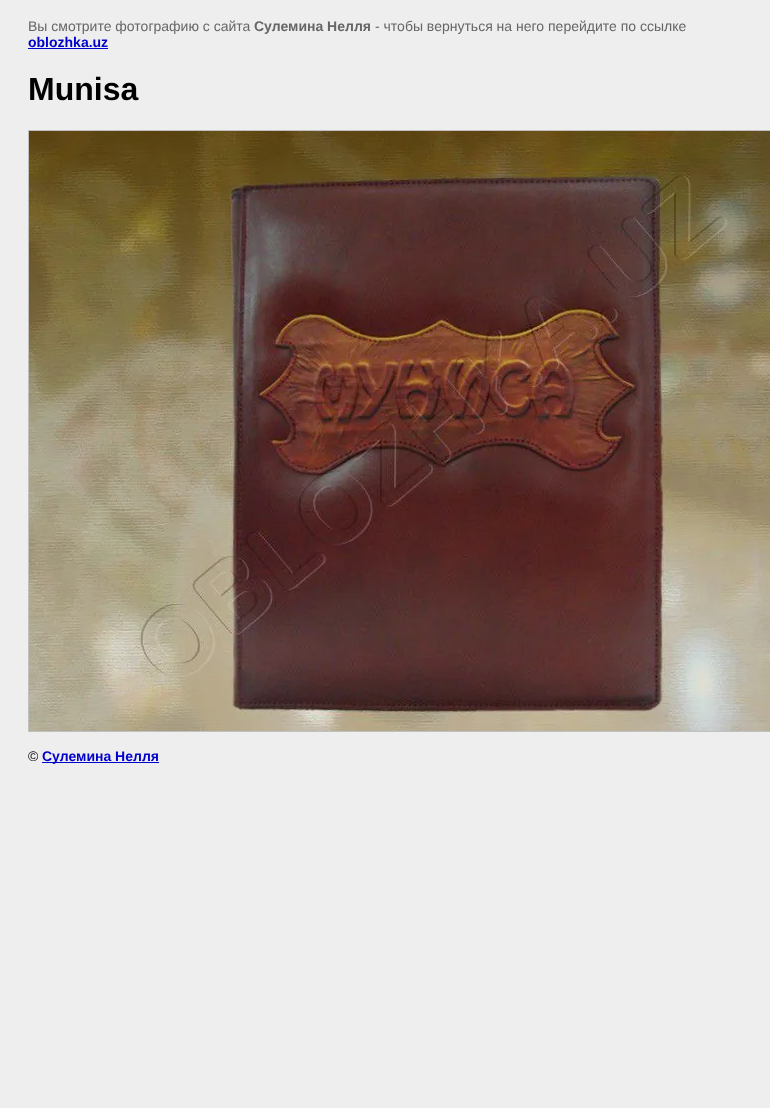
async function draw(canvas) {
  canvas.width = 770;
  canvas.height = 1108;
  const ctx = canvas.getContext('2d');
  ctx.miterLimit = 4;
  ctx.fontKerning = 'normal';
  function label(s, x, y, font, color) {
    ctx.font = font;
    ctx.fillStyle = color;
    ctx.fillText(s, x, y);
  }
  function rect(x, y, w, h, color) {
    ctx.fillStyle = color;
    ctx.fillRect(x, y, w, h);
  }
  async function image(src, x, y, w, h) {
    const img = new Image();
    img.src = src;
    await img.decode();
    ctx.drawImage(img, x, y, w, h);
  }

  rect(0, 0, 770, 1108, '#eee');
  label('Вы смотрите фотографию с сайта', 28, 31, '14px Liberation Sans', '#666');
  label('Сулемина Нелля', 254, 31, 'bold 14px Liberation Sans', '#666');
  label('- чтобы вернуться на него перейдите по ссылке', 375, 31, '14px Liberation Sans', '#666');
  label('oblozhka.uz', 28, 47, 'bold 14px Liberation Sans', '#00c');
  rect(28, 48, 80, 1, '#00c');
  label('Munisa', 28, 100, 'bold 32px Liberation Sans', '#000');
  ctx.strokeStyle = '#c0c0c0';
  ctx.strokeRect(28.5, 130.5, 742, 601);
  await image('assets/img1.png', 29, 131, 741, 600);
  label('©', 28, 761, '14px Liberation Sans', '#000');
  rect(42, 762, 117, 1, '#00c');
  label('Сулемина Нелля', 42, 761, 'bold 14px Liberation Sans', '#00c');
}

draw(document.querySelector('canvas'));
